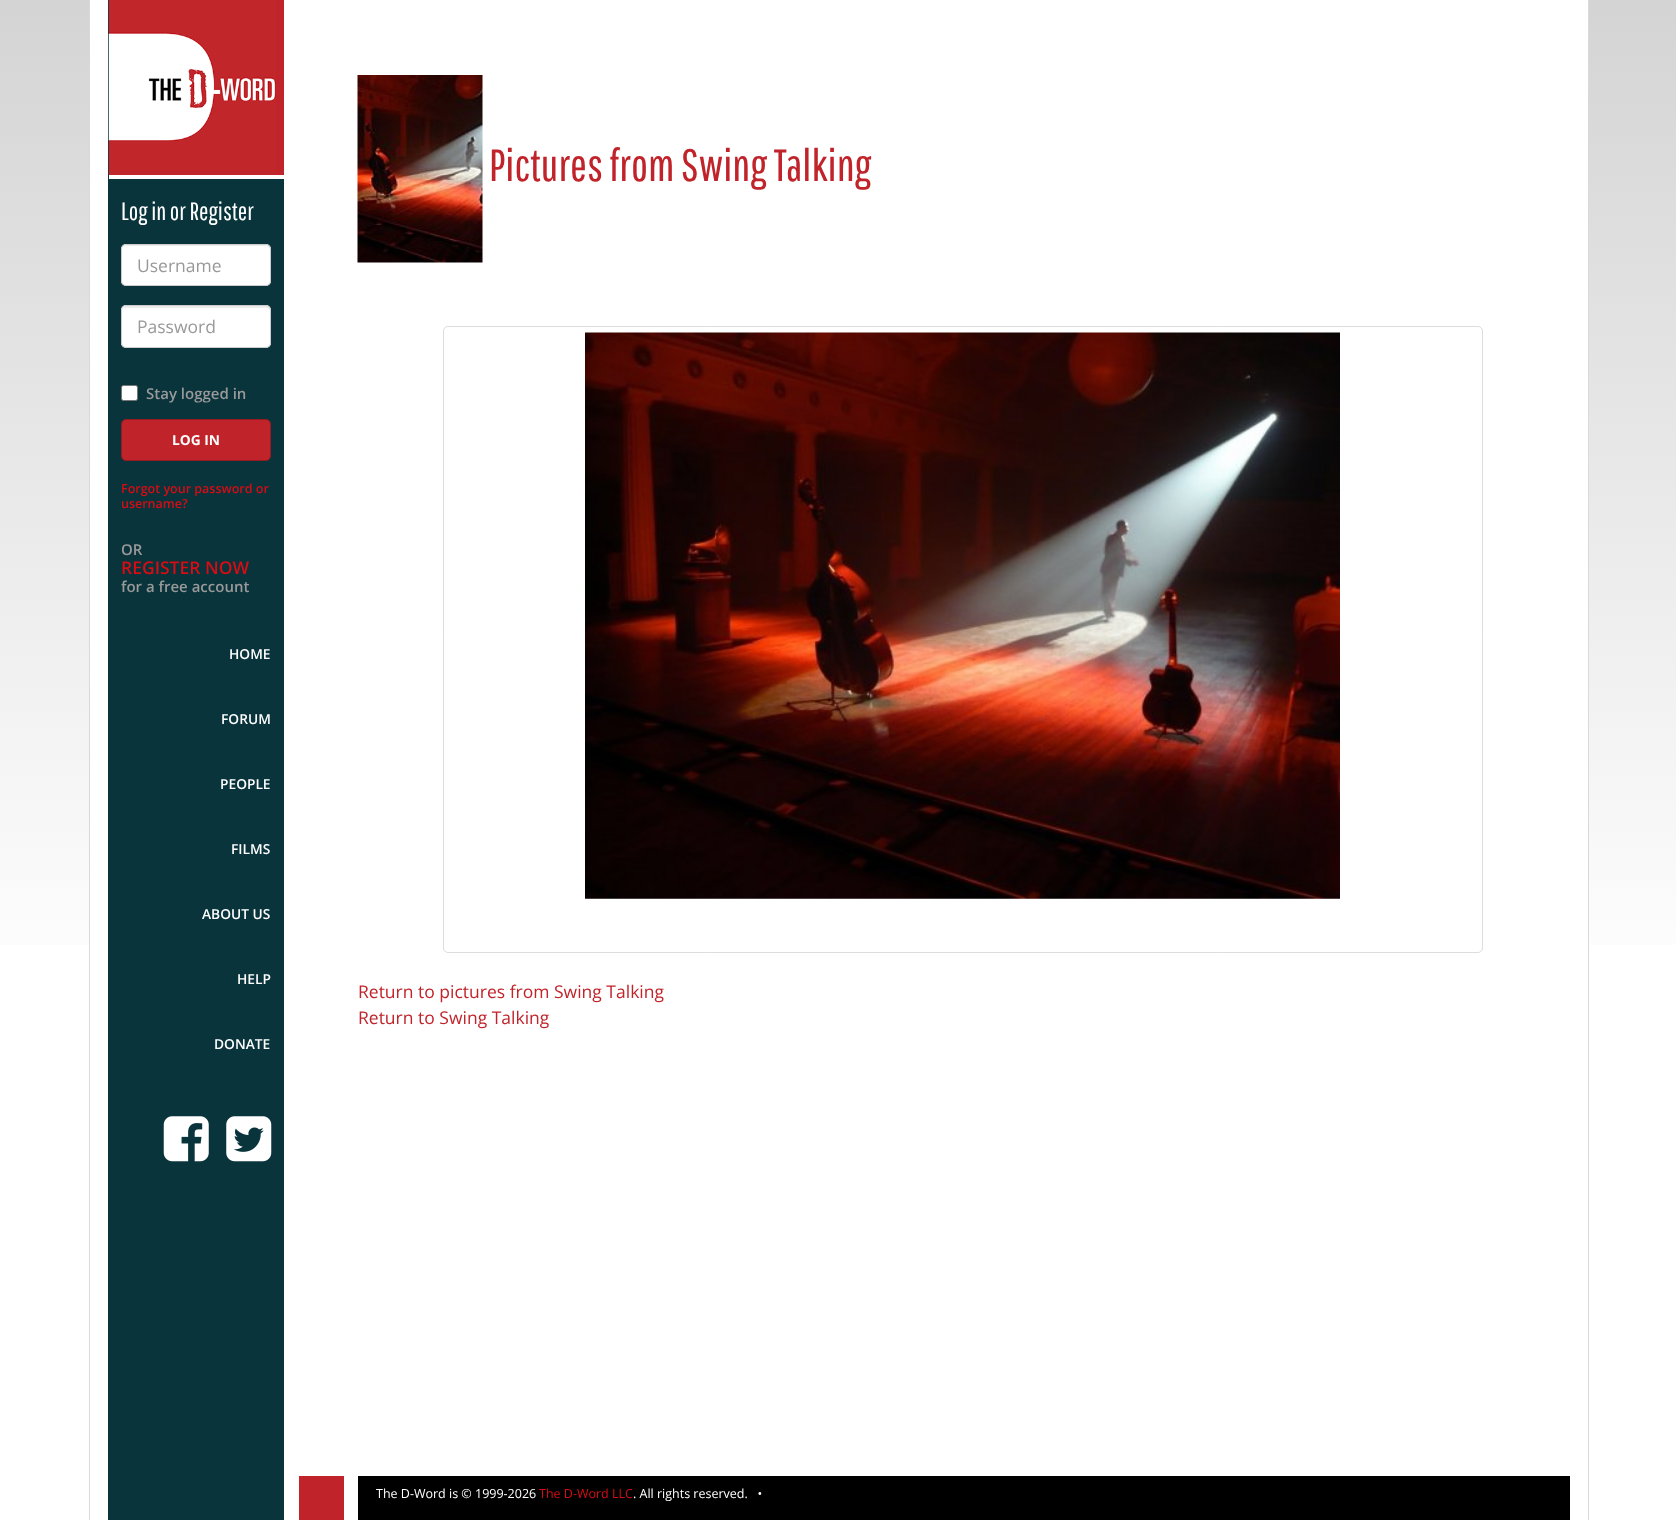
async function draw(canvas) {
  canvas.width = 1676;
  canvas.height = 1520;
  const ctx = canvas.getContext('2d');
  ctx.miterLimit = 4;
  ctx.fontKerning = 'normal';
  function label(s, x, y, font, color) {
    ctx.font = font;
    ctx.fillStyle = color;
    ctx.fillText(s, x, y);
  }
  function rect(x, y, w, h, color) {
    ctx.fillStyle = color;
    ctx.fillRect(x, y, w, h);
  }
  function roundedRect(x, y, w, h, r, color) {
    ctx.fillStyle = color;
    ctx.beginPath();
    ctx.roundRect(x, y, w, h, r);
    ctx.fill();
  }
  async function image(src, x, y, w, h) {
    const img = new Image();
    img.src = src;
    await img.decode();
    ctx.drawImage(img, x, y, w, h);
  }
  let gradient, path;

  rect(0, 0, 1676, 1520, '#fff');
  gradient = ctx.createLinearGradient(838, 0, 838, 1520);
  gradient.addColorStop(0, '#d4d4d4');
  gradient.addColorStop(0.66, '#fff');
  ctx.fillStyle = gradient;
  ctx.fillRect(0, 0, 1676, 945);
  rect(90, 0, 1498, 945, '#fff');
  rect(108, 0, 176, 1520, '#09343c');
  rect(1588, 0, 1, 1520, '#d9d9d9');
  rect(89, 0, 1, 1520, '#d9d9d9');
  rect(276, 0, 8, 175, '#c02329');
  rect(109, 175, 175, 4, '#fff');
  await image('assets/img1.png', 108, 0, 168, 175);
  label('Log in or Register', 121, 220, '25px Pathway Gothic One', '#fff');
  roundedRect(121, 244, 150, 42, 5, '#fff');
  ctx.fillStyle = '#ececec';
  path = new Path2D('M126 246H266C268 246 270 248 270 250V249C270 247 268 245 266 245H127C126 245 124 246 124 247Z');
  ctx.fill(path);
  ctx.beginPath();
  ctx.roundRect(121.5, 244.5, 149, 41, 4.5);
  ctx.strokeStyle = '#ccc';
  ctx.stroke();
  label('Username', 137, 272, '17.5px Open Sans', '#999');
  roundedRect(121, 305, 150, 43, 5, '#fff');
  ctx.fillStyle = '#ececec';
  path = new Path2D('M126 308H266C268 308 270 309 270 311C270 309 270 307 268 306H127H125L123 309Z');
  ctx.fill(path);
  ctx.beginPath();
  ctx.roundRect(121.5, 305.5, 149, 42, 4.5);
  ctx.stroke();
  label('Password', 137, 333, '17.5px Open Sans', '#999');
  ctx.fillStyle = '#fff';
  ctx.beginPath();
  ctx.roundRect(121.5, 385.5, 16, 15, 2);
  ctx.fill();
  ctx.strokeStyle = '#767676';
  ctx.stroke();
  label('Stay logged in', 146, 399, '600 15px Open Sans', '#999');
  ctx.fillStyle = '#c02329';
  ctx.beginPath();
  ctx.roundRect(121.5, 419.5, 149, 41, 4.5);
  ctx.fill();
  ctx.strokeStyle = '#951b20';
  ctx.stroke();
  label('LOG IN', 172, 445, 'bold 13.75px Open Sans', '#fff');
  label('Forgot your password or', 121, 493, '600 12.5px Open Sans', '#d70c14');
  label('username?', 121, 508, '600 12.5px Open Sans', '#d70c14');
  label('OR', 121, 555, '600 15px Open Sans', '#999');
  label('REGISTER NOW', 121, 574, '600 17.5px Open Sans', '#d70c14');
  label('for a free account', 121, 592, '600 15px Open Sans', '#999');
  label('HOME', 229, 659, '600 13.75px Open Sans', '#fff');
  label('FORUM', 221, 724, '600 13.75px Open Sans', '#fff');
  label('PEOPLE', 220, 789, '600 13.75px Open Sans', '#fff');
  label('FILMS', 231, 854, '600 13.75px Open Sans', '#fff');
  label('ABOUT US', 202, 919, '600 13.75px Open Sans', '#fff');
  label('HELP', 237, 984, '600 13.75px Open Sans', '#fff');
  label('DONATE', 214, 1049, '600 13.75px Open Sans', '#fff');
  await image('assets/img2.png', 163, 1116, 46, 46);
  await image('assets/img3.png', 226, 1116, 46, 46);
  await image('assets/img4.png', 357, 75, 126, 188);
  label('Pictures from Swing Talking', 489, 181, '45px Pathway Gothic One', '#c02329');
  ctx.beginPath();
  ctx.roundRect(443.5, 326.5, 1039, 626, 4.5);
  ctx.strokeStyle = '#ddd';
  ctx.stroke();
  await image('assets/img5.png', 585, 332, 755, 567);
  label('Return to pictures from Swing Talking', 358, 998, '17.5px Open Sans', '#c02329');
  label('Return to Swing Talking', 358, 1024, '17.5px Open Sans', '#c02329');
  rect(358, 1476, 1212, 44, '#000');
  rect(299, 1476, 45, 44, '#c02329');
  label('The D-Word is © 1999-2026', 376, 1498, '12.5px Open Sans', '#fff');
  label('The D-Word LLC', 539, 1498, '12.5px Open Sans', '#d70c14');
  label('. All rights reserved.   •', 633, 1498, '12.5px Open Sans', '#fff');
}

draw(document.querySelector('canvas'));
